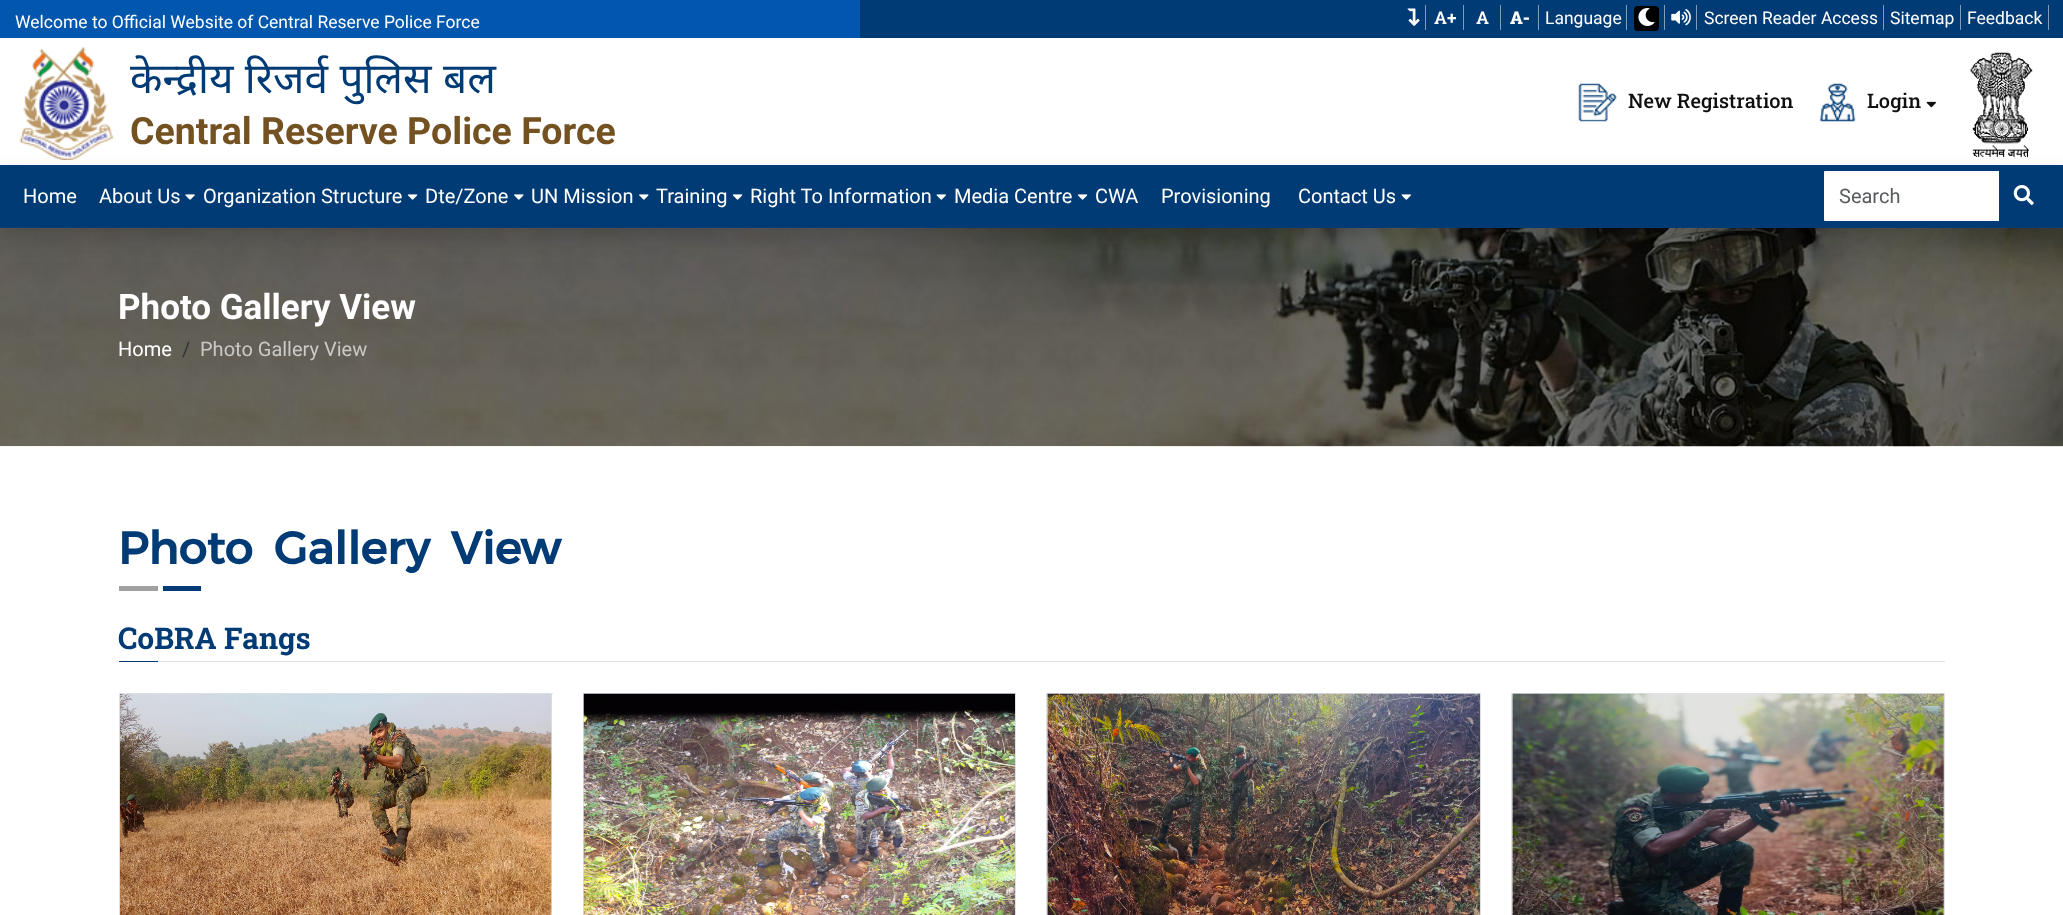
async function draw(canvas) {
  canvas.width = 2063;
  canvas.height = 915;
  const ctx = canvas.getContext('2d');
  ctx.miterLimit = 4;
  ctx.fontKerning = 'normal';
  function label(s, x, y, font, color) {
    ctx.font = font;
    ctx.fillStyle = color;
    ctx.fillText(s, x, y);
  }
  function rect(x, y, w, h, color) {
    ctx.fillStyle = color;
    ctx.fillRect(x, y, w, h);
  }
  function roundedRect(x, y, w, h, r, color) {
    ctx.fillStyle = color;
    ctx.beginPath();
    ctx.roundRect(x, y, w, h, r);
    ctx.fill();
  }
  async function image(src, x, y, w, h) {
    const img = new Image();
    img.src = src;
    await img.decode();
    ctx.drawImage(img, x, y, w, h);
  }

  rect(0, 0, 2063, 915, '#fff');
  rect(860, 0, 1203, 38, '#003b75');
  rect(0, 0, 860, 38, '#0057ad');
  label('Welcome to Official Website of Central Reserve Police Force', 15, 28, '17.5px Roboto', '#fff');
  await image('assets/img1.png', 1407, 8, 13, 18);
  rect(1425, 5, 1, 25, '#809dba');
  label('A+', 1434, 24, '600 17.5px Roboto Slab', '#fff');
  rect(1463, 5, 1, 25, '#809dba');
  label('A', 1476, 24, '600 17.5px Roboto Slab', '#fff');
  rect(1500, 5, 1, 25, '#809dba');
  label('A-', 1510, 24, '900 17.5px Roboto Slab', '#fff');
  rect(1538, 5, 1, 25, '#809dba');
  label('Language', 1545, 24, '17.5px Roboto', '#fff');
  rect(1626, 5, 1, 25, '#809dba');
  roundedRect(1634, 6, 25, 25, 4, '#000');
  await image('assets/img2.png', 1638, 8, 17, 18);
  rect(1664, 5, 1, 25, '#809dba');
  await image('assets/img3.png', 1671, 9, 20, 17);
  rect(1696, 5, 1, 25, '#809dba');
  label('Screen Reader Access', 1704, 24, '17.5px Roboto', '#fff');
  rect(1883, 5, 1, 25, '#809dba');
  label('Sitemap', 1890, 24, '17.5px Roboto', '#fff');
  rect(1960, 5, 1, 25, '#809dba');
  label('Feedback', 1967, 24, '17.5px Roboto', '#fff');
  rect(2048, 5, 1, 25, '#809dba');
  await image('assets/img4.png', 19, 47, 95, 113);
  ctx.wordSpacing = '0.5px';
  label('केन्द्रीय रिजर्व पुलिस बल', 130, 93, '42.25px Noto Sans', '#003b75');
  ctx.wordSpacing = '0px';
  label('Central Reserve Police Force', 130, 144, 'bold 37.5px Roboto', '#735121');
  await image('assets/img5.png', 1578, 83, 39, 39);
  label('New Registration', 1628, 108, '500 20px Roboto Slab', '#101010');
  await image('assets/img6.png', 1819, 83, 37, 39);
  label('Login', 1867, 108, '500 20px Roboto Slab', '#101010');
  await image('assets/img7.png', 1926, 101, 10, 7);
  await image('assets/img8.png', 1969, 52, 64, 105);
  await image('assets/img14.png', 0, 228, 2063, 219);
  ctx.fillStyle = '#00000026';
  ctx.filter = 'blur(10px)';
  ctx.beginPath();
  ctx.rect(0, 175, 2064, 63);
  ctx.fill();
  ctx.filter = 'none';
  rect(0, 165, 2063, 63, '#003b75');
  label('Home', 23, 203, '20px Roboto', '#fff');
  label('About Us', 99, 203, '20px Roboto', '#fff');
  await image('assets/img9.png', 185, 194, 10, 6);
  label('Organization Structure', 203, 203, '20px Roboto', '#fff');
  await image('assets/img10.png', 407, 194, 11, 6);
  label('Dte/Zone', 425, 203, '20px Roboto', '#fff');
  await image('assets/img11.png', 514, 194, 10, 6);
  label('UN Mission', 531, 203, '20px Roboto', '#fff');
  await image('assets/img11.png', 639, 194, 10, 6);
  label('Training', 656, 203, '20px Roboto', '#fff');
  await image('assets/img10.png', 732, 194, 11, 6);
  label('Right To Information', 750, 203, '20px Roboto', '#fff');
  await image('assets/img12.png', 936, 194, 10, 6);
  label('Media Centre', 954, 203, '20px Roboto', '#fff');
  await image('assets/img10.png', 1077, 194, 11, 6);
  label('CWA', 1095, 203, '20px Roboto', '#fff');
  label('Provisioning', 1161, 203, '20px Roboto', '#fff');
  label('Contact Us', 1298, 203, '20px Roboto', '#fff');
  await image('assets/img12.png', 1401, 194, 10, 6);
  ctx.beginPath();
  ctx.roundRect(1824, 171, 176, 50, [1, 0, 0, 1]);
  ctx.fill();
  label('Search', 1839, 203, '20px Roboto', '#595c5f');
  ctx.fillStyle = '#003b75';
  ctx.beginPath();
  ctx.roundRect(1999, 171, 50, 50, [0, 8, 8, 0]);
  ctx.fill();
  await image('assets/img13.png', 2013, 185, 21, 20);
  label('Photo Gallery View', 118, 319, 'bold 35px Roboto', '#fff');
  label('Home', 118, 356, '20px Roboto', '#fff');
  label('/', 182, 356, '20px Roboto', '#313334');
  label('Photo Gallery View', 200, 356, '20px Roboto', '#cac9c5');
  ctx.wordSpacing = '9px';
  label('Photo Gallery View', 118, 564, 'bold 45px Alexandria', '#003b75');
  rect(119, 586, 39, 5, '#a1a1a1');
  rect(163, 586, 38, 5, '#003b75');
  ctx.wordSpacing = '0px';
  label('CoBRA Fangs', 118, 649, 'bold 30px Roboto Slab', '#003b75');
  rect(119, 661, 39, 1, '#003b75');
  rect(159, 661, 1786, 1, '#e0e1e3');
  rect(119, 693, 434, 1, '#dee2e6');
  rect(551, 693, 1, 222, '#dee2e6');
  rect(119, 693, 1, 222, '#dee2e6');
  await image('assets/img15.png', 120, 693, 432, 222);
  rect(583, 693, 433, 1, '#dee2e6');
  rect(1015, 693, 1, 222, '#dee2e6');
  rect(583, 693, 1, 222, '#dee2e6');
  await image('assets/img16.png', 583, 693, 432, 222);
  rect(1046, 693, 435, 1, '#dee2e6');
  rect(1480, 693, 1, 222, '#dee2e6');
  rect(1046, 693, 1, 222, '#dee2e6');
  await image('assets/img17.png', 1047, 693, 433, 222);
  rect(1511, 693, 434, 1, '#dee2e6');
  rect(1944, 693, 1, 222, '#dee2e6');
  rect(1511, 693, 1, 222, '#dee2e6');
  await image('assets/img18.png', 1512, 693, 432, 222);
}

draw(document.querySelector('canvas'));
